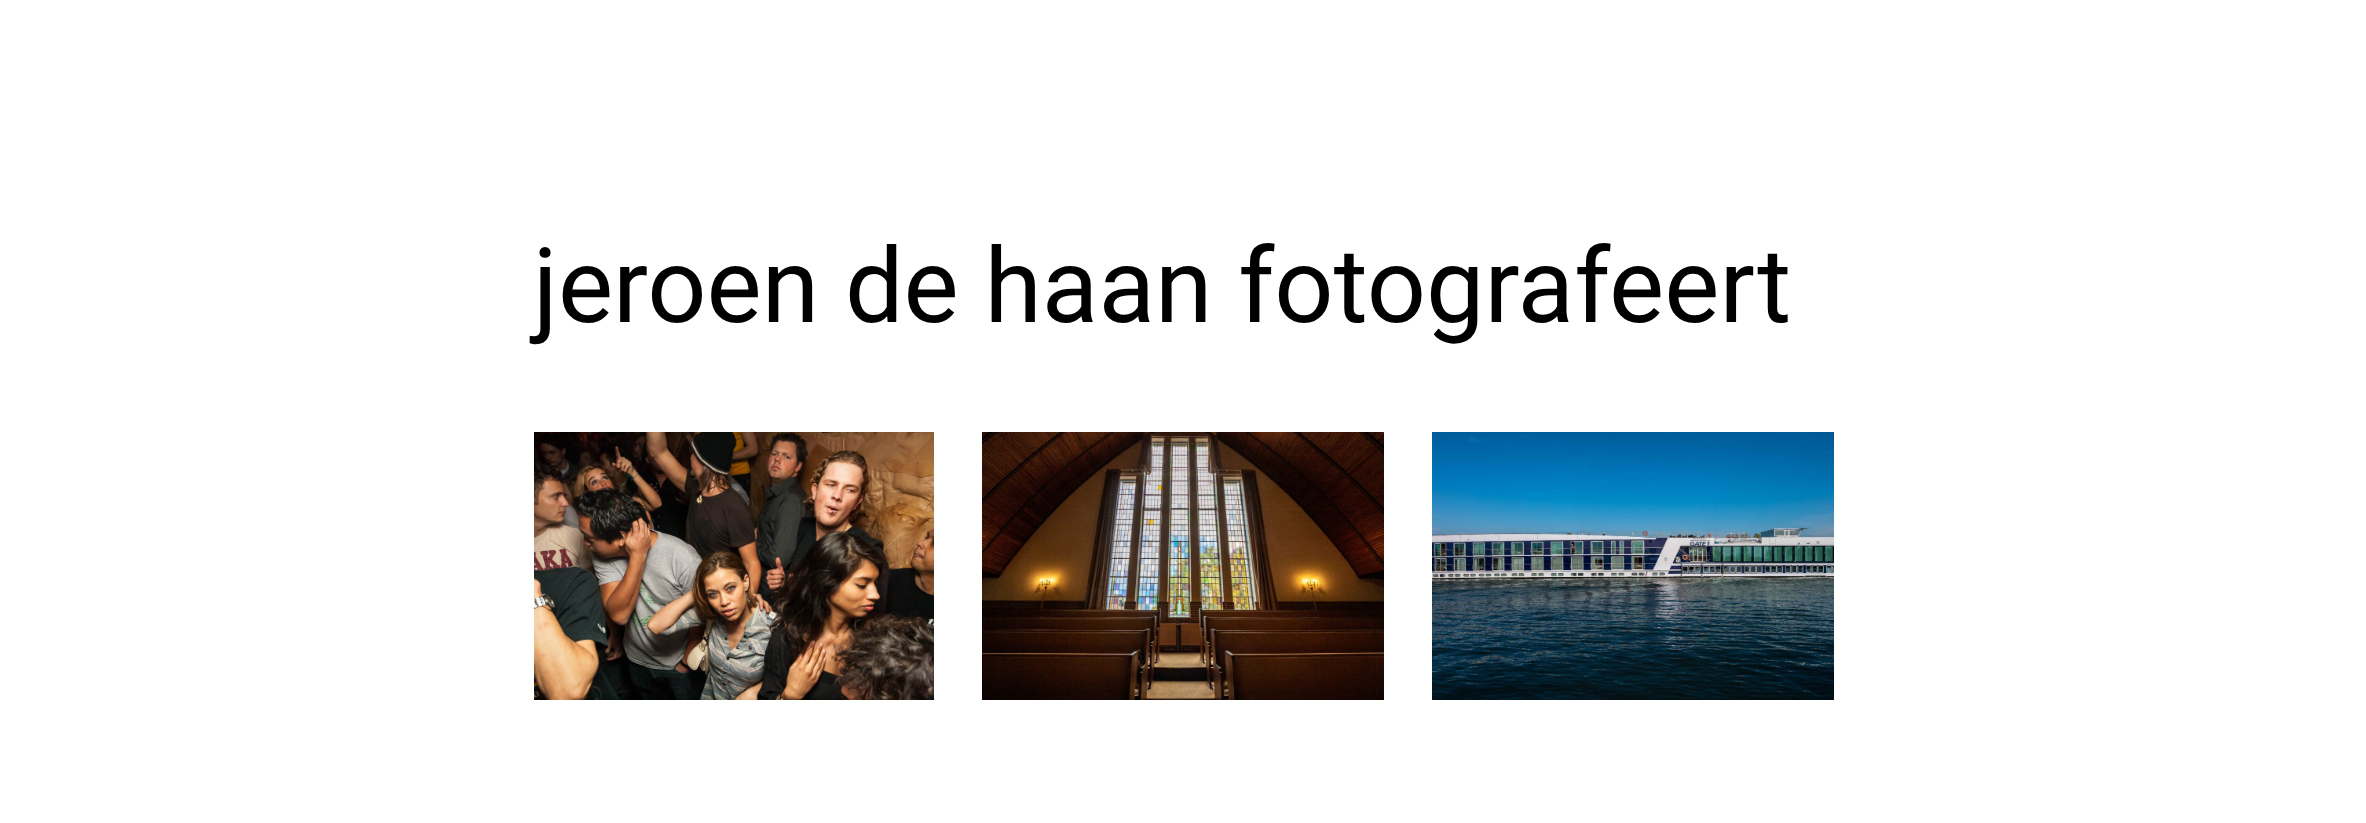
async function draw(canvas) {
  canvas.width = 2366;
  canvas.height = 823;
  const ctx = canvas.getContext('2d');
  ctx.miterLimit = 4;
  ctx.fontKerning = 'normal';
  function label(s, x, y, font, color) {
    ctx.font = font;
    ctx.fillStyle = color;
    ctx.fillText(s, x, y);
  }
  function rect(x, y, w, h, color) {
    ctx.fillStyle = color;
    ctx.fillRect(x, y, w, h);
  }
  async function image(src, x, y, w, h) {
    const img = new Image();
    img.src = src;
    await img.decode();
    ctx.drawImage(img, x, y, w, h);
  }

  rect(0, 0, 2366, 823, '#fff');
  label('jeroen de haan fotografeert', 533, 322, '104px Roboto', '#000');
  await image('assets/img1.png', 534, 432, 400, 268);
  await image('assets/img2.png', 982, 432, 402, 268);
  await image('assets/img3.png', 1432, 432, 402, 268);
}

draw(document.querySelector('canvas'));
